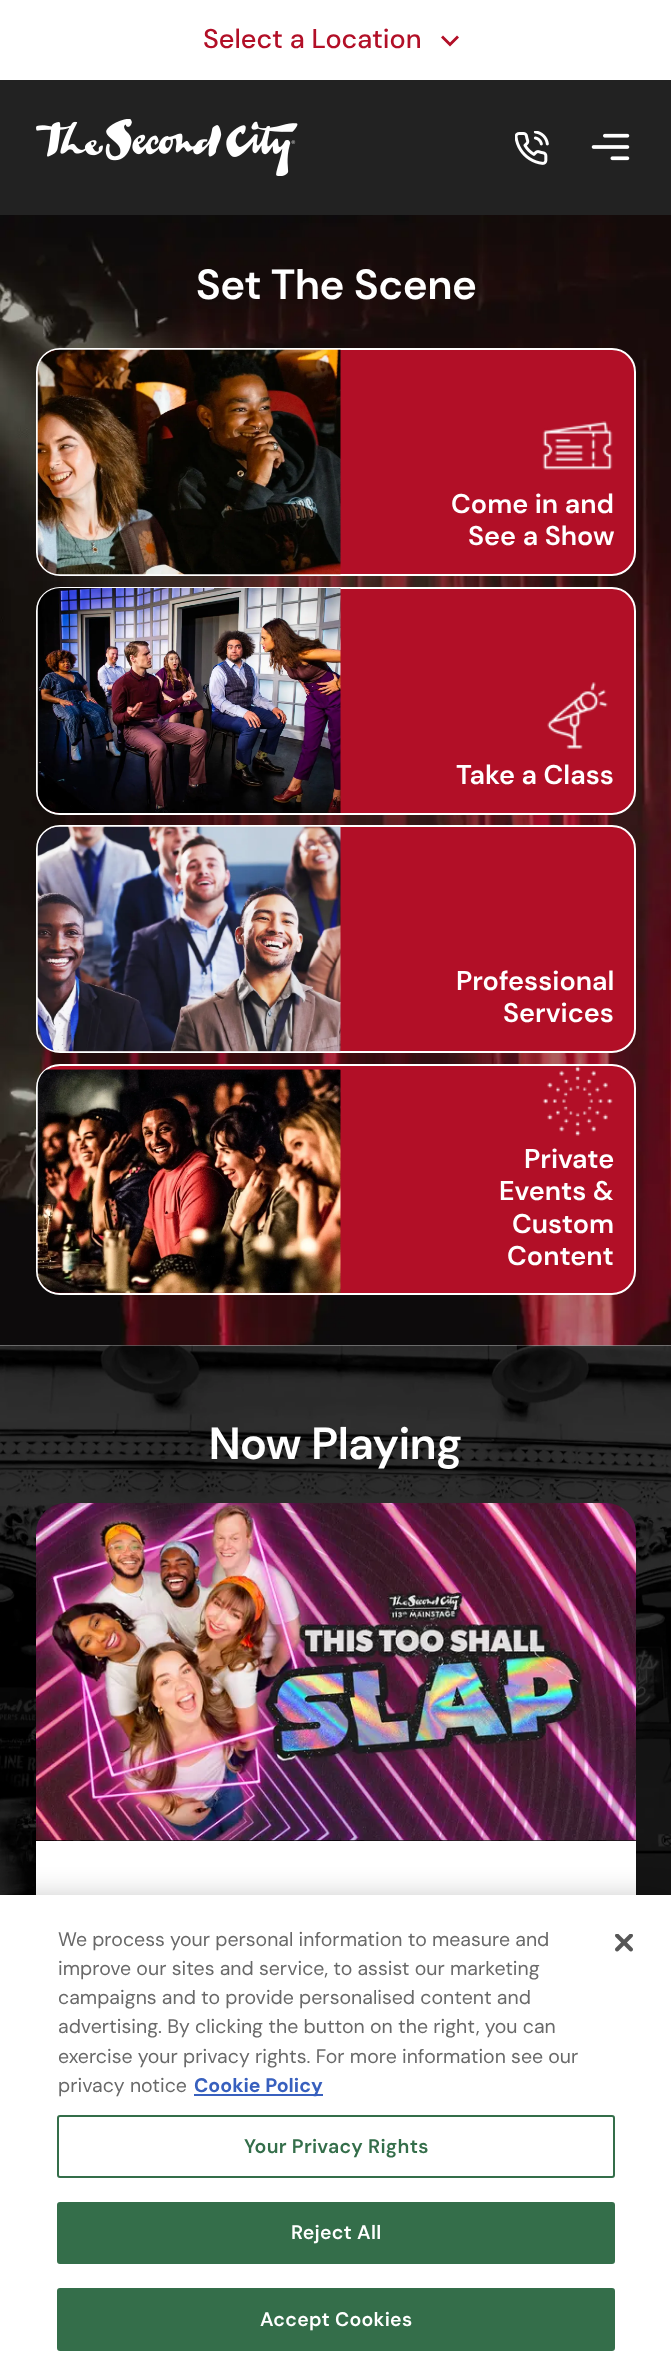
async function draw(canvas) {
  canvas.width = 671;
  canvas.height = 2374;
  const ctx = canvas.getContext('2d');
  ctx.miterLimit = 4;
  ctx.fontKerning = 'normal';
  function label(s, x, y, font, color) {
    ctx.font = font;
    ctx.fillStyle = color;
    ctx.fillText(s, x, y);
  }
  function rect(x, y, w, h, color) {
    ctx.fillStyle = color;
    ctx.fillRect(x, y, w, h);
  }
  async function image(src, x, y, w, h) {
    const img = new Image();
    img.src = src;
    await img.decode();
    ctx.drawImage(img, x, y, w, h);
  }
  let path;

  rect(0, 0, 671, 2374, '#fff');
  rect(0, 80, 671, 135, '#222');
  label('Select a Location', 203, 48, '500 27px DM Sans', '#b20f27');
  path = new Path2D('M457 35.5L450 42.5L443 35.5L441 37.5L450 46.5L459 37.5Z');
  ctx.fill(path);
  await image('assets/img1.png', 36, 119, 262, 57);
  await image('assets/img2.png', 515, 131, 34, 34);
  await image('assets/img3.png', 591, 133, 39, 28);
  await image('assets/img4.png', 0, 215, 671, 1131);
  label('Set The Scene', 196, 299, '600 42px "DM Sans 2"', '#fff');
  ctx.fillStyle = '#b20f27';
  ctx.beginPath();
  ctx.roundRect(37, 349, 598, 226, 23);
  ctx.fill();
  ctx.strokeStyle = '#fff';
  ctx.lineWidth = 2;
  ctx.stroke();
  await image('assets/img5.png', 37, 349, 304, 226);
  await image('assets/img6.png', 542, 421, 71, 49);
  label('Come in and', 451, 513, '600 27px "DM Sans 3"', '#fff');
  label('See a Show', 468, 545, '600 27px "DM Sans 3"', '#fff');
  ctx.fillStyle = '#b20f27';
  ctx.beginPath();
  ctx.roundRect(37, 588, 598, 226, 23);
  ctx.fill();
  ctx.stroke();
  await image('assets/img7.png', 37, 588, 304, 225);
  await image('assets/img8.png', 547, 682, 61, 67);
  label('Take a Class', 456, 784, '600 27px "DM Sans 3"', '#fff');
  ctx.fillStyle = '#b20f27';
  ctx.beginPath();
  ctx.roundRect(37, 826, 598, 226, 23);
  ctx.fill();
  ctx.stroke();
  await image('assets/img9.png', 37, 826, 304, 226);
  label('Professional', 456, 990, '600 27px "DM Sans 3"', '#fff');
  label('Services', 503, 1022, '600 27px "DM Sans 3"', '#fff');
  ctx.fillStyle = '#b20f27';
  ctx.beginPath();
  ctx.roundRect(37, 1065, 598, 229, 23);
  ctx.fill();
  ctx.stroke();
  await image('assets/img10.png', 37, 1069, 304, 224);
  await image('assets/img11.png', 542, 1066, 71, 70);
  label('Private', 524, 1168, '600 27px "DM Sans 3"', '#fff');
  label('Events &', 499, 1200, '600 27px "DM Sans 3"', '#fff');
  label('Custom', 512, 1233, '600 27px "DM Sans 3"', '#fff');
  label('Content', 507, 1265, '600 27px "DM Sans 3"', '#fff');
  await image('assets/img12.png', 0, 1345, 671, 550);
  label('Now Playing', 209, 1459, '600 45px DM Sans', '#fff');
  await image('assets/img13.png', 36, 1503, 600, 338);
  rect(36, 1841, 600, 54, '#fff');
  ctx.fillStyle = '#00000033';
  ctx.filter = 'blur(13.5px)';
  ctx.beginPath();
  ctx.rect(0, 1895, 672, 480);
  ctx.fill();
  ctx.filter = 'none';
  rect(0, 1895, 671, 479, '#fff');
  label('We process your personal information to measure and', 58, 1946, '19.5px DM Sans', '#696969');
  label('improve our sites and service, to assist our marketing', 58, 1975, '19.5px DM Sans', '#696969');
  label('campaigns and to provide personalised content and', 58, 2004, '19.5px DM Sans', '#696969');
  label('advertising. By clicking the button on the right, you can', 58, 2033, '19.5px DM Sans', '#696969');
  label('exercise your privacy rights. For more information see our', 58, 2063, '19.5px DM Sans', '#696969');
  label('privacy notice', 58, 2092, '19.5px DM Sans', '#696969');
  rect(194, 2094, 129, 2, '#3860be');
  label('Cookie Policy', 194, 2092, 'bold 19.5px DM Sans', '#3860be');
  ctx.beginPath();
  ctx.roundRect(58, 2116, 556, 61, 2);
  ctx.strokeStyle = '#346e4a';
  ctx.stroke();
  ctx.letterSpacing = '0.25px';
  label('Your Privacy Rights', 244, 2153, '600 19.5px "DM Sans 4"', '#346e4a');
  ctx.beginPath();
  ctx.roundRect(58, 2203, 556, 60, 2);
  ctx.fill();
  ctx.stroke();
  label('Reject All', 291, 2239, '600 19.5px "DM Sans 4"', '#fff');
  ctx.fillStyle = '#346e4a';
  ctx.beginPath();
  ctx.roundRect(58, 2289, 556, 61, 2);
  ctx.fill();
  ctx.stroke();
  label('Accept Cookies', 260, 2326, '600 19.5px "DM Sans 4"', '#fff');
  await image('assets/img14.png', 615, 1934, 18, 18);
}

draw(document.querySelector('canvas'));
